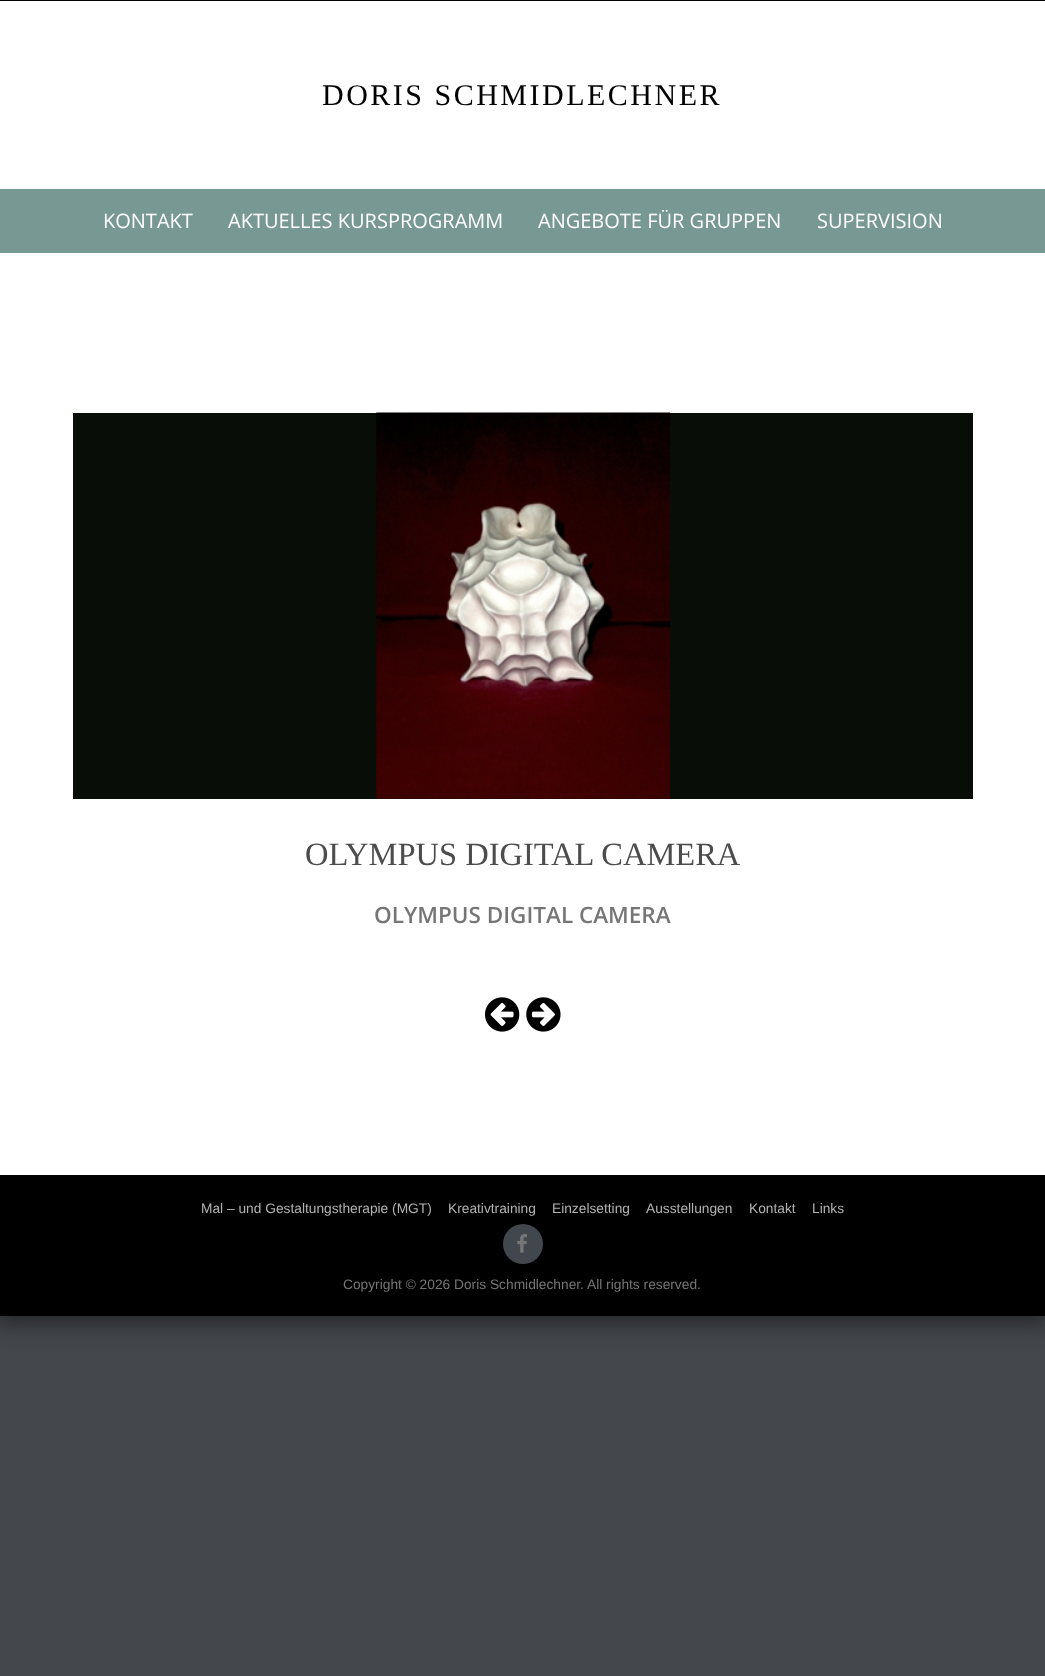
async function draw(canvas) {
  canvas.width = 1045;
  canvas.height = 1676;
  const ctx = canvas.getContext('2d');
  ctx.miterLimit = 4;
  ctx.fontKerning = 'normal';
  function label(s, x, y, font, color) {
    ctx.font = font;
    ctx.fillStyle = color;
    ctx.fillText(s, x, y);
  }
  function rect(x, y, w, h, color) {
    ctx.fillStyle = color;
    ctx.fillRect(x, y, w, h);
  }
  async function image(src, x, y, w, h) {
    const img = new Image();
    img.src = src;
    await img.decode();
    ctx.drawImage(img, x, y, w, h);
  }

  rect(0, 0, 1045, 1676, '#44474c');
  ctx.fillStyle = '#00000080';
  ctx.filter = 'blur(12.5px)';
  ctx.beginPath();
  ctx.rect(-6, -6, 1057, 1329);
  ctx.fill();
  ctx.filter = 'none';
  rect(0, 0, 1045, 1, '#000');
  rect(0, 1, 1045, 188, '#fff');
  ctx.letterSpacing = '2.5px';
  label('DORIS SCHMIDLECHNER', 322, 105, '30px Liberation Serif', '#000');
  rect(0, 189, 1045, 64, '#789993');
  ctx.letterSpacing = '0px';
  label('KONTAKT', 103, 228, '20px Open Sans', '#fff');
  label('AKTUELLES KURSPROGRAMM', 228, 228, '20px Open Sans', '#fff');
  label('ANGEBOTE FÜR GRUPPEN', 538, 228, '20px Open Sans', '#fff');
  label('SUPERVISION', 817, 228, '20px Open Sans', '#fff');
  rect(0, 253, 1045, 922, '#fff');
  rect(73, 413, 900, 386, '#080d07');
  await image('assets/img1.png', 376, 412, 294, 387);
  label('OLYMPUS DIGITAL CAMERA', 305, 865, '32.5px Liberation Serif', '#4c4c4c');
  label('OLYMPUS DIGITAL CAMERA', 374, 923, '600 22.5px Open Sans', '#767676');
  await image('assets/img2.png', 485, 997, 35, 35);
  await image('assets/img3.png', 526, 997, 35, 35);
  rect(0, 1175, 1045, 141, '#000');
  label('Mal – und Gestaltungstherapie (MGT)', 201, 1213, '13.75px Liberation Sans', '#b2b2b2');
  label('Kreativtraining', 448, 1213, '13.75px Liberation Sans', '#b2b2b2');
  label('Einzelsetting', 552, 1213, '13.75px Liberation Sans', '#b2b2b2');
  label('Ausstellungen', 646, 1213, '13.75px Liberation Sans', '#b2b2b2');
  label('Kontakt', 749, 1213, '13.75px Liberation Sans', '#b2b2b2');
  label('Links', 812, 1213, '13.75px Liberation Sans', '#b2b2b2');
  ctx.fillStyle = '#42474d';
  ctx.beginPath();
  ctx.arc(523, 1244, 20, 0, 2 * Math.PI);
  ctx.fill();
  await image('assets/img4.png', 517, 1234, 10, 19);
  label('Copyright © 2026 Doris Schmidlechner. All rights reserved.', 343, 1289, '13.75px Liberation Sans', '#767676');
}

draw(document.querySelector('canvas'));
